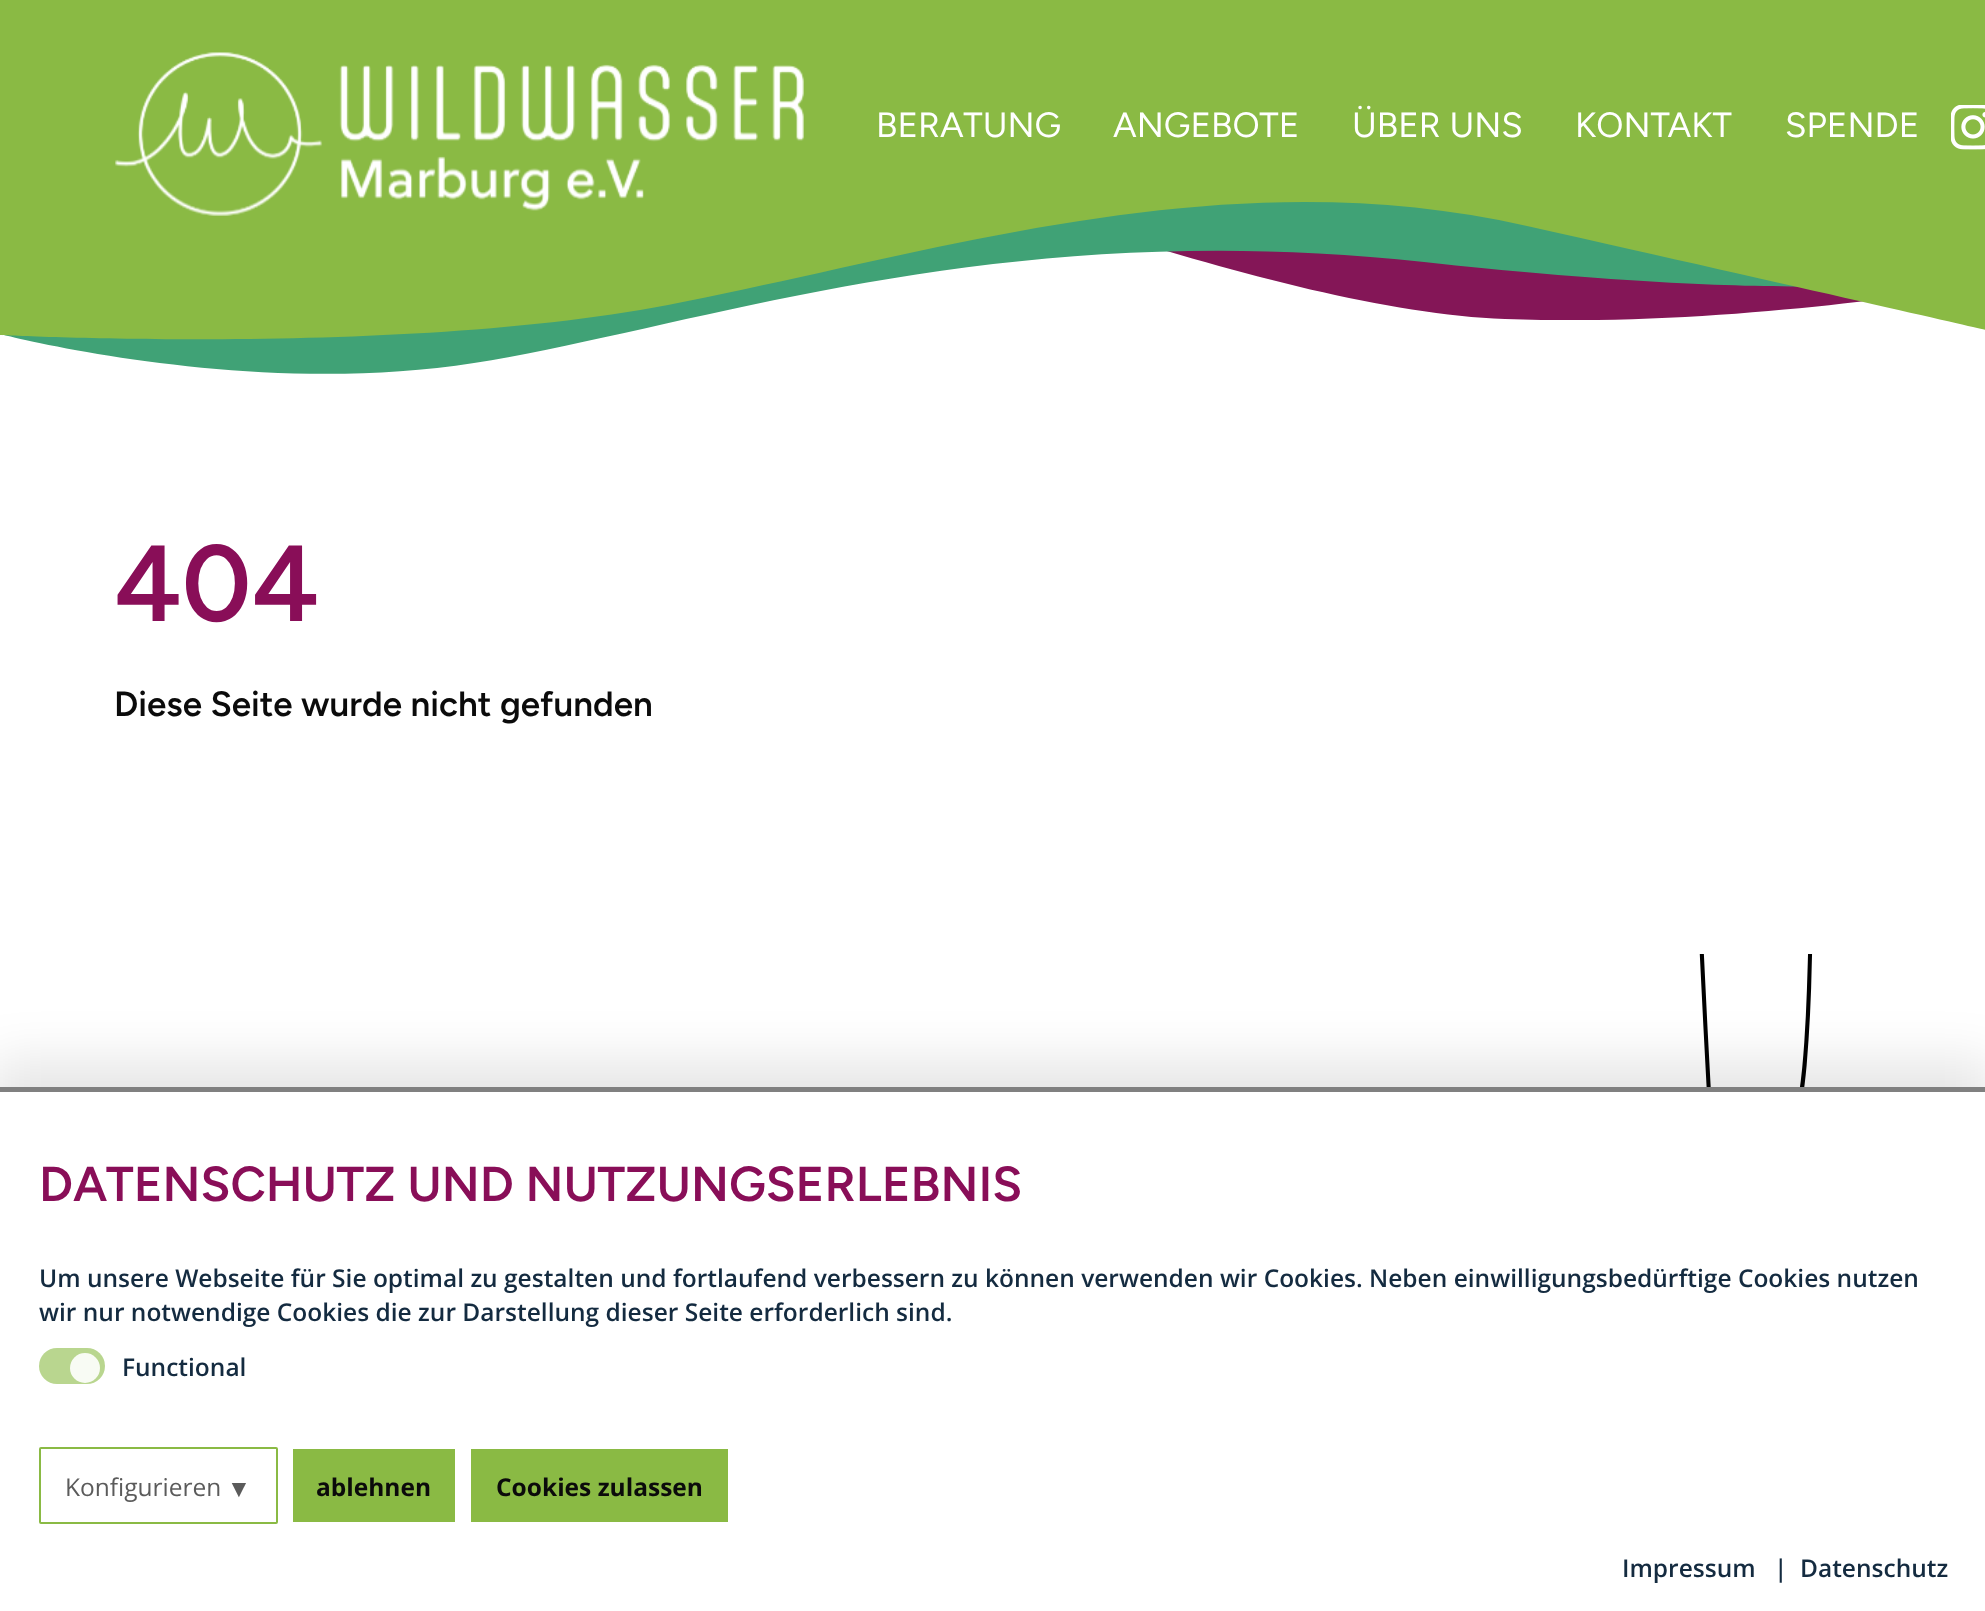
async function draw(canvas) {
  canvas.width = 1985;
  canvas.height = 1611;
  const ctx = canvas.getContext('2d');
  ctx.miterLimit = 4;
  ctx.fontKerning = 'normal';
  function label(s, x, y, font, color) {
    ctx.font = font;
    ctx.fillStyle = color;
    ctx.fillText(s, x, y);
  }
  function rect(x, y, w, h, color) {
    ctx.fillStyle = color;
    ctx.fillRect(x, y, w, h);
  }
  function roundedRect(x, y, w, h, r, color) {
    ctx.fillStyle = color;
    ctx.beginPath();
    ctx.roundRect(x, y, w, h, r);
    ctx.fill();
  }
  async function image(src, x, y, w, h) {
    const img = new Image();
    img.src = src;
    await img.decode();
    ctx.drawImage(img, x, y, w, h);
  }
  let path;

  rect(0, 0, 1985, 1611, '#fff');
  ctx.save();
  ctx.beginPath();
  ctx.rect(0, 0, 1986, 320);
  ctx.clip();
  ctx.fillStyle = '#841657';
  path = new Path2D('M879 151C879 151 1276 311 1505 319C1733 328 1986 284 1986 284V0H0V150Z');
  ctx.fill(path);
  ctx.restore();
  ctx.fillStyle = '#40a276';
  path = new Path2D('M0 334C0 334 248 399 474 363C700 327 996 215 1424 262C1852 309 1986 274 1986 274V0H0Z');
  ctx.fill(path);
  ctx.fillStyle = '#8aba44';
  path = new Path2D('M0 335C0 335 402 356 668 305C933 254 1223 157 1527 226C1830 294 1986 330 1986 330V0H0Z');
  ctx.fill(path);
  await image('assets/img1.png', 115, 52, 689, 164);
  label('BERATUNG', 876, 137, '300 35px Figtree', '#fff');
  label('ANGEBOTE', 1113, 137, '300 35px Figtree', '#fff');
  label('ÜBER UNS', 1352, 137, '300 35px Figtree', '#fff');
  label('KONTAKT', 1575, 137, '300 35px Figtree', '#fff');
  label('SPENDE', 1785, 137, '300 35px Figtree', '#fff');
  await image('assets/img2.png', 1951, 105, 34, 45);
  label('404', 114, 621, '600 108px Figtree', '#890e58');
  label('Diese Seite wurde nicht gefunden', 114, 716, '600 35px Figtree', '#0b0b0b');
  await image('assets/img3.png', 1699, 954, 114, 133);
  ctx.fillStyle = '#0000001a';
  ctx.filter = 'blur(26px)';
  ctx.beginPath();
  ctx.rect(-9, 1061, 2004, 542);
  ctx.fill();
  ctx.filter = 'none';
  rect(0, 1092, 1985, 519, '#fff');
  rect(0, 1087, 1985, 5, '#808080');
  label('DATENSCHUTZ UND NUTZUNGSERLEBNIS', 39, 1201, '600 49px Figtree', '#890e58');
  label('Um unsere Webseite für Sie optimal zu gestalten und fortlaufend verbessern zu können verwenden wir Cookies. Neben einwilligungsbedürftige Cookies nutzen', 39, 1287, '600 24.5px Open Sans', '#142b40');
  label('wir nur notwendige Cookies die zur Darstellung dieser Seite erforderlich sind.', 39, 1321, '600 24.5px Open Sans', '#142b40');
  roundedRect(39, 1348, 66, 36, 18, '#b9d68f');
  ctx.fillStyle = '#f8fbf4';
  ctx.beginPath();
  ctx.arc(85, 1368, 15, 0, 2 * Math.PI);
  ctx.fill();
  label('Functional', 122, 1376, '600 24.5px Open Sans', '#142b40');
  ctx.beginPath();
  ctx.roundRect(40, 1448, 237, 75, 1);
  ctx.strokeStyle = '#8aba44';
  ctx.lineWidth = 2;
  ctx.stroke();
  label('Konfigurieren', 65, 1496, '24.5px Open Sans', '#5b5b5b');
  ctx.font = '24.5px Liberation Sans';
  ctx.save();
  ctx.translate(251, 1483);
  ctx.rotate(180 * Math.PI / 180);
  ctx.fillText('▲', 0, 0);
  ctx.restore();
  ctx.fillStyle = '#8aba44';
  ctx.beginPath();
  ctx.roundRect(292, 1448, 164, 75, 1);
  ctx.fill();
  ctx.strokeStyle = '#fff';
  ctx.stroke();
  label('ablehnen', 316, 1496, 'bold 24.5px Open Sans', '#0b0b0b');
  ctx.fillStyle = '#8aba44';
  ctx.beginPath();
  ctx.roundRect(470, 1448, 259, 75, 1);
  ctx.fill();
  ctx.stroke();
  label('Cookies zulassen', 496, 1496, 'bold 24.5px Open Sans', '#0b0b0b');
  label('Impressum', 1622, 1577, '600 24.5px Open Sans', '#142b40');
  label('|', 1774, 1577, '600 24.5px Open Sans', '#142b40');
  label('Datenschutz', 1800, 1577, '600 24.5px Open Sans', '#142b40');
}

draw(document.querySelector('canvas'));
